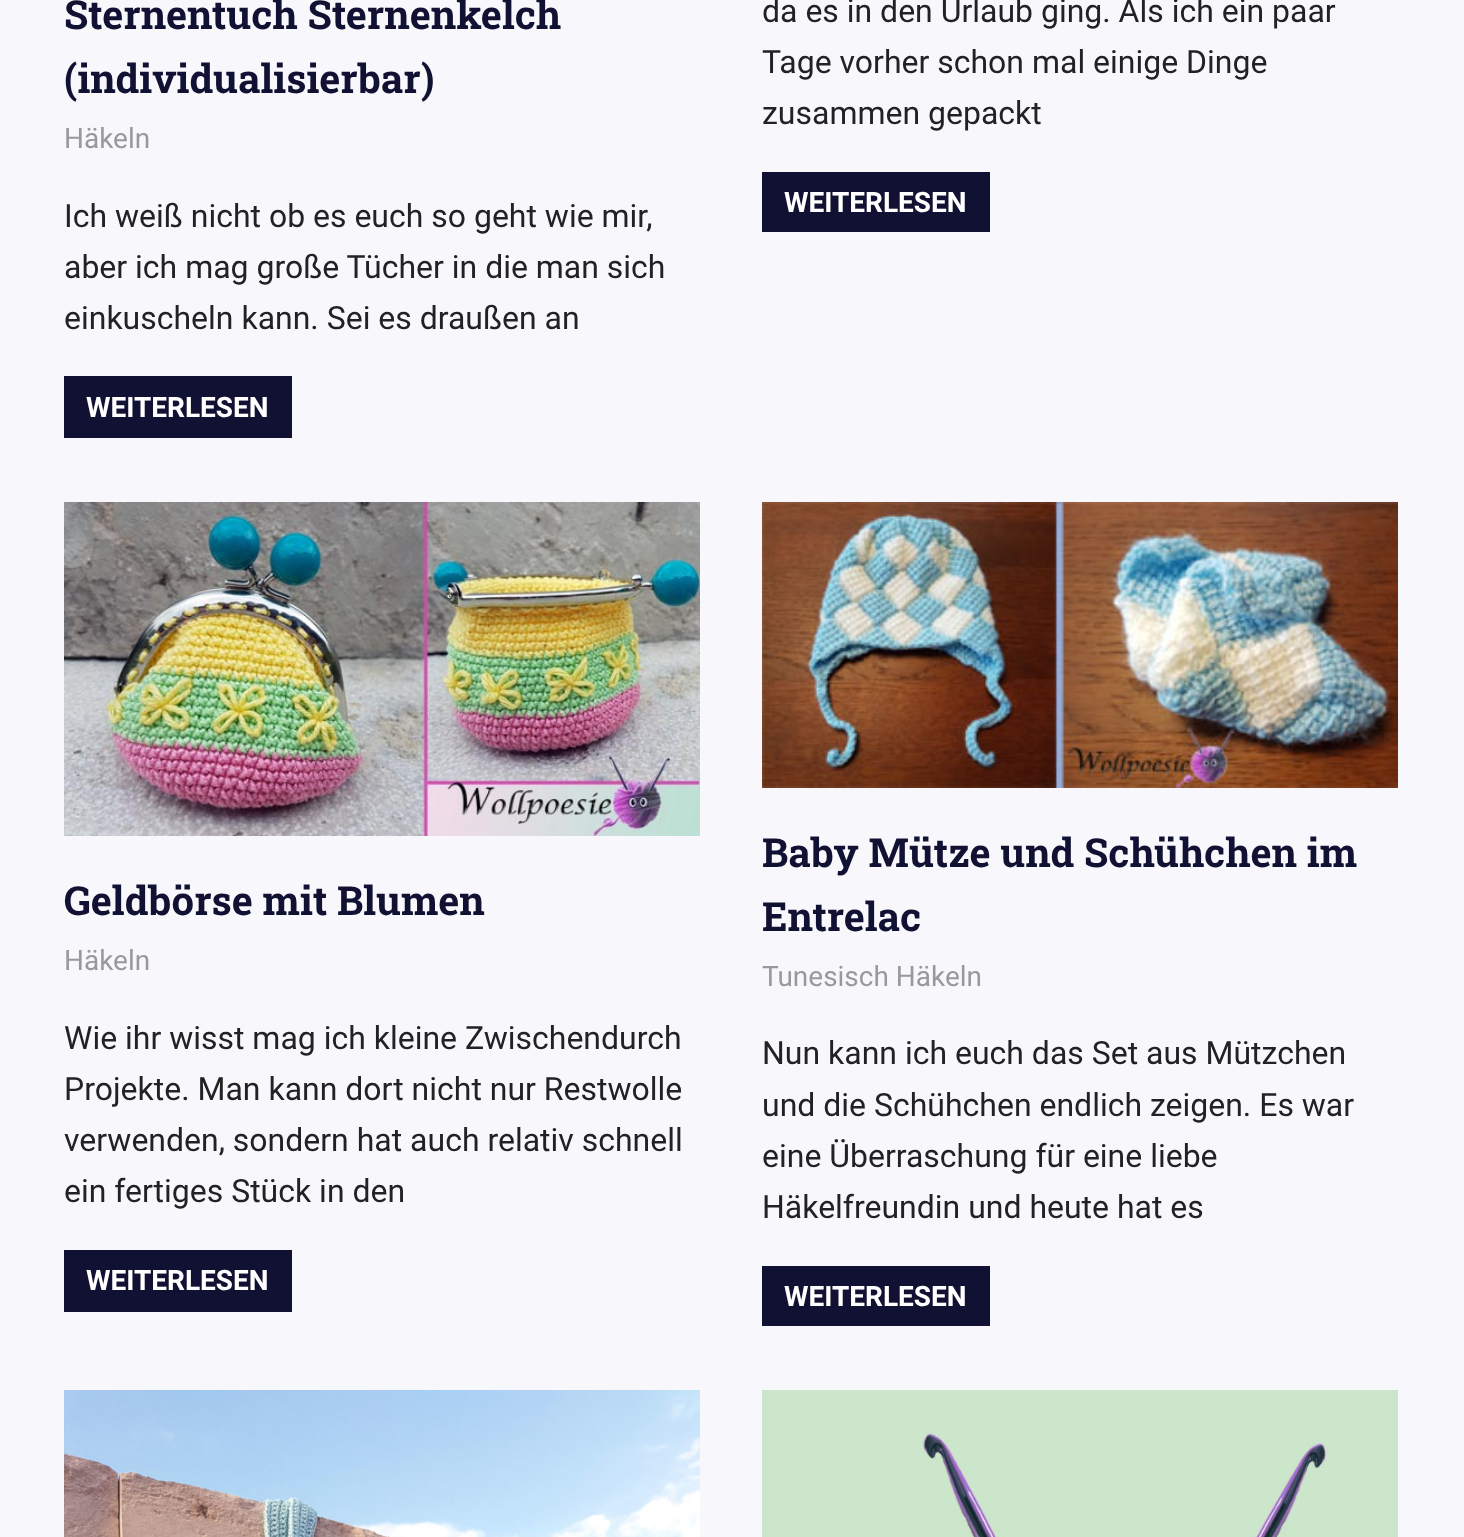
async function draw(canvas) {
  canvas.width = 1464;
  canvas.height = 1537;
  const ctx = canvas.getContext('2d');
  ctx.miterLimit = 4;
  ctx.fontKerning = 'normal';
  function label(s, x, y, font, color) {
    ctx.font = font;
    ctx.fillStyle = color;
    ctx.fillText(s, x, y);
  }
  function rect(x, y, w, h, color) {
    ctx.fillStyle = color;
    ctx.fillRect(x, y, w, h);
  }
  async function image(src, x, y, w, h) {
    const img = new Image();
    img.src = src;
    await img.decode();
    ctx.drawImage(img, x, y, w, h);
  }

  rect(0, 0, 1464, 1537, '#f8f7fb');
  label('Sternentuch Sternenkelch', 64, 29, 'bold 40px Roboto Slab', '#113');
  label('(individualisierbar)', 64, 93, 'bold 40px Roboto Slab', '#113');
  label('Häkeln', 64, 148, '28px Roboto', '#999');
  label('Ich weiß nicht ob es euch so geht wie mir,', 64, 227, '32px Roboto', '#222');
  label('aber ich mag große Tücher in die man sich', 64, 278, '32px Roboto', '#222');
  label('einkuscheln kann. Sei es draußen an', 64, 329, '32px Roboto', '#222');
  rect(64, 376, 228, 62, '#113');
  label('WEITERLESEN', 86, 417, 'bold 28px Roboto', '#fff');
  label('da es in den Urlaub ging. Als ich ein paar', 762, 22, '32px Roboto', '#222');
  label('Tage vorher schon mal einige Dinge', 762, 73, '32px Roboto', '#222');
  label('zusammen gepackt', 762, 124, '32px Roboto', '#222');
  rect(762, 172, 228, 60, '#113');
  label('WEITERLESEN', 784, 212, 'bold 28px Roboto', '#fff');
  await image('assets/img1.png', 64, 502, 636, 334);
  label('Geldbörse mit Blumen', 64, 915, 'bold 40px Roboto Slab', '#113');
  label('Häkeln', 64, 970, '28px Roboto', '#999');
  label('Wie ihr wisst mag ich kleine Zwischendurch', 64, 1049, '32px Roboto', '#222');
  label('Projekte. Man kann dort nicht nur Restwolle', 64, 1100, '32px Roboto', '#222');
  label('verwenden, sondern hat auch relativ schnell', 64, 1151, '32px Roboto', '#222');
  label('ein fertiges Stück in den', 64, 1202, '32px Roboto', '#222');
  rect(64, 1250, 228, 62, '#113');
  label('WEITERLESEN', 86, 1290, 'bold 28px Roboto', '#fff');
  await image('assets/img2.png', 762, 502, 636, 286);
  label('Baby Mütze und Schühchen im', 762, 867, 'bold 40px Roboto Slab', '#113');
  label('Entrelac', 762, 931, 'bold 40px Roboto Slab', '#113');
  label('Tunesisch Häkeln', 762, 986, '28px Roboto', '#999');
  label('Nun kann ich euch das Set aus Mützchen', 762, 1064, '32px Roboto', '#222');
  label('und die Schühchen endlich zeigen. Es war', 762, 1116, '32px Roboto', '#222');
  label('eine Überraschung für eine liebe', 762, 1167, '32px Roboto', '#222');
  label('Häkelfreundin und heute hat es', 762, 1218, '32px Roboto', '#222');
  rect(762, 1266, 228, 60, '#113');
  label('WEITERLESEN', 784, 1306, 'bold 28px Roboto', '#fff');
  await image('assets/img3.png', 64, 1390, 636, 147);
  await image('assets/img4.png', 762, 1390, 636, 147);
}

draw(document.querySelector('canvas'));
